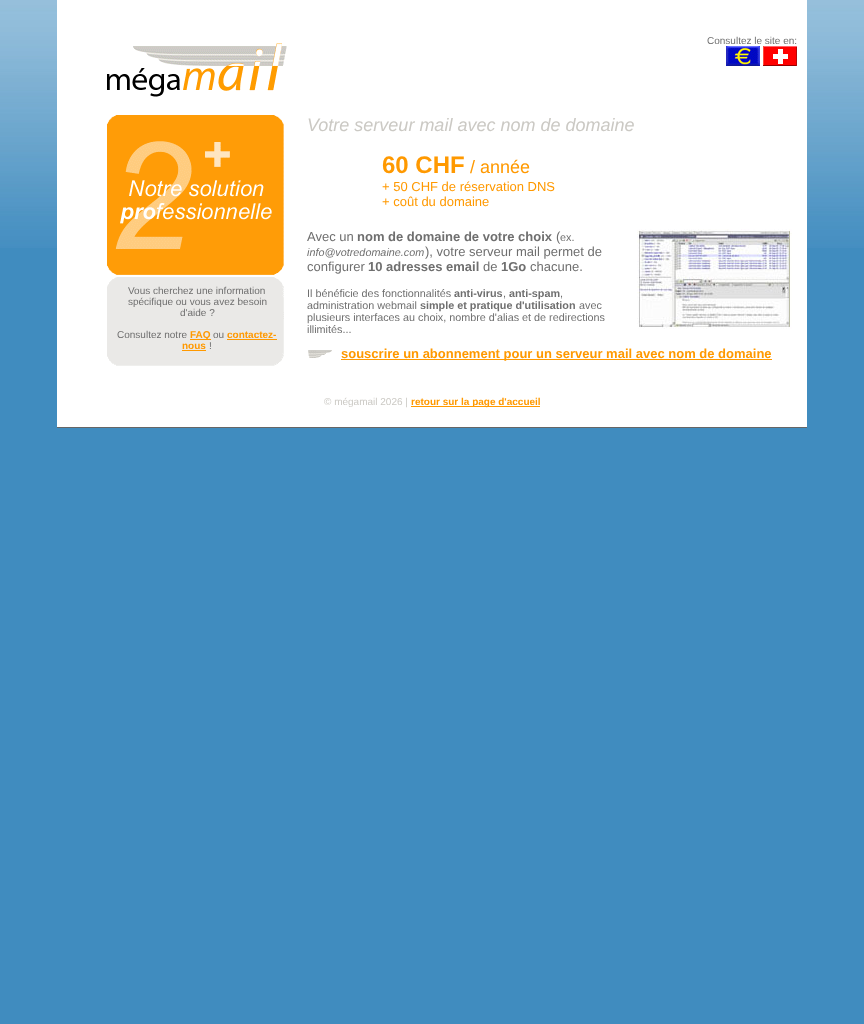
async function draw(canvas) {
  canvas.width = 864;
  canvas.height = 1024;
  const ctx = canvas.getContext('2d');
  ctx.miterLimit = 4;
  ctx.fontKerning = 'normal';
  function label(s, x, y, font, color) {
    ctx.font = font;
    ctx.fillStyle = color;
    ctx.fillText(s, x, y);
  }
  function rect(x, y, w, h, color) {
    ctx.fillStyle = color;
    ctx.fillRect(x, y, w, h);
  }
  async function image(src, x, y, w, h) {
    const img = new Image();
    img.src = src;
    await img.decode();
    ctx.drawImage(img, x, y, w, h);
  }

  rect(0, 0, 864, 1024, '#408cbf');
  await image('assets/img1.png', 0, 0, 864, 248);
  rect(57, 0, 750, 427, '#fff');
  rect(57, 427, 750, 1, '#666');
  label('Consultez le site en:', 707, 44, '10px Liberation Sans', '#6f6f6f');
  await image('assets/img2.png', 726, 46, 34, 20);
  await image('assets/img3.png', 763, 46, 34, 20);
  await image('assets/img4.png', 107, 43, 180, 54);
  await image('assets/img5.png', 107, 115, 177, 160);
  await image('assets/img6.png', 109, 116, 173, 159);
  await image('assets/img7.png', 107, 277, 177, 89);
  label('Vous cherchez une information', 128, 294, '10px Liberation Sans', '#6f6f6f');
  label('spécifique ou vous avez besoin', 128, 305, '10px Liberation Sans', '#6f6f6f');
  label('d\'aide ?', 180, 316, '10px Liberation Sans', '#6f6f6f');
  label('Consultez notre', 117, 338, '10px Liberation Sans', '#6f6f6f');
  rect(190, 339, 21, 1, '#f90');
  label('FAQ', 190, 338, 'bold 10px Liberation Sans', '#f90');
  label('ou', 213, 338, '10px Liberation Sans', '#6f6f6f');
  label('contactez-', 227, 338, 'bold 10px Liberation Sans', '#f90');
  rect(227, 339, 50, 1, '#f90');
  label('nous', 182, 349, 'bold 10px Liberation Sans', '#f90');
  rect(182, 350, 24, 1, '#f90');
  label('!', 209, 349, '10px Liberation Sans', '#6f6f6f');
  label('Votre serveur mail avec nom de domaine', 307, 131, 'italic 18px Liberation Sans', '#cbc9c4');
  label('60 CHF', 382, 173, 'bold 24px Liberation Sans', '#f90');
  label('/ année', 470, 173, '18px Liberation Sans', '#f90');
  label('+ 50 CHF de réservation DNS', 382, 191, '13px Liberation Sans', '#f90');
  label('+ coût du domaine', 382, 206, '13px Liberation Sans', '#f90');
  label('Avec un', 307, 241, '13px Liberation Sans', '#6f6f6f');
  label('nom de domaine de votre choix', 357, 241, 'bold 13px Liberation Sans', '#6f6f6f');
  label('(', 556, 241, '13px Liberation Sans', '#6f6f6f');
  label('ex.', 560, 241, '10.8px Liberation Sans', '#6f6f6f');
  await image('assets/img8.png', 637, 229, 155, 100);
  label('info@votredomaine.com', 307, 256, 'italic 10.8px Liberation Sans', '#6f6f6f');
  label('), votre serveur mail permet de', 425, 256, '13px Liberation Sans', '#6f6f6f');
  label('configurer', 307, 271, '13px Liberation Sans', '#6f6f6f');
  label('10 adresses email', 368, 271, 'bold 13px Liberation Sans', '#6f6f6f');
  label('de', 483, 271, '13px Liberation Sans', '#6f6f6f');
  label('1Go', 501, 271, 'bold 13px Liberation Sans', '#6f6f6f');
  label('chacune.', 530, 271, '13px Liberation Sans', '#6f6f6f');
  label('Il bénéficie des fonctionnalités', 307, 297, '10.8px Liberation Sans', '#6f6f6f');
  label('anti-virus', 454, 297, 'bold 10.8px Liberation Sans', '#6f6f6f');
  label(',', 503, 297, '10.8px Liberation Sans', '#6f6f6f');
  label('anti-spam', 509, 297, 'bold 10.8px Liberation Sans', '#6f6f6f');
  label(',', 560, 297, '10.8px Liberation Sans', '#6f6f6f');
  label('administration webmail', 307, 309, '10.8px Liberation Sans', '#6f6f6f');
  label('simple et pratique d\'utilisation', 420, 309, 'bold 10.8px Liberation Sans', '#6f6f6f');
  label('avec', 579, 309, '10.8px Liberation Sans', '#6f6f6f');
  label('plusieurs interfaces au choix, nombre d\'alias et de redirections', 307, 321, '10.8px Liberation Sans', '#6f6f6f');
  label('illimités...', 307, 333, '10.8px Liberation Sans', '#6f6f6f');
  await image('assets/img9.png', 308, 350, 24, 8);
  rect(341, 359, 431, 1, '#f90');
  label('souscrire un abonnement pour un serveur mail avec nom de domaine', 341, 358, 'bold 13px Liberation Sans', '#f90');
  label('© mégamail 2026 |', 324, 405, '10px Liberation Sans', '#cbc9c4');
  rect(411, 406, 129, 1, '#f90');
  label('retour sur la page d\'accueil', 411, 405, 'bold 10px Liberation Sans', '#f90');
}

draw(document.querySelector('canvas'));
